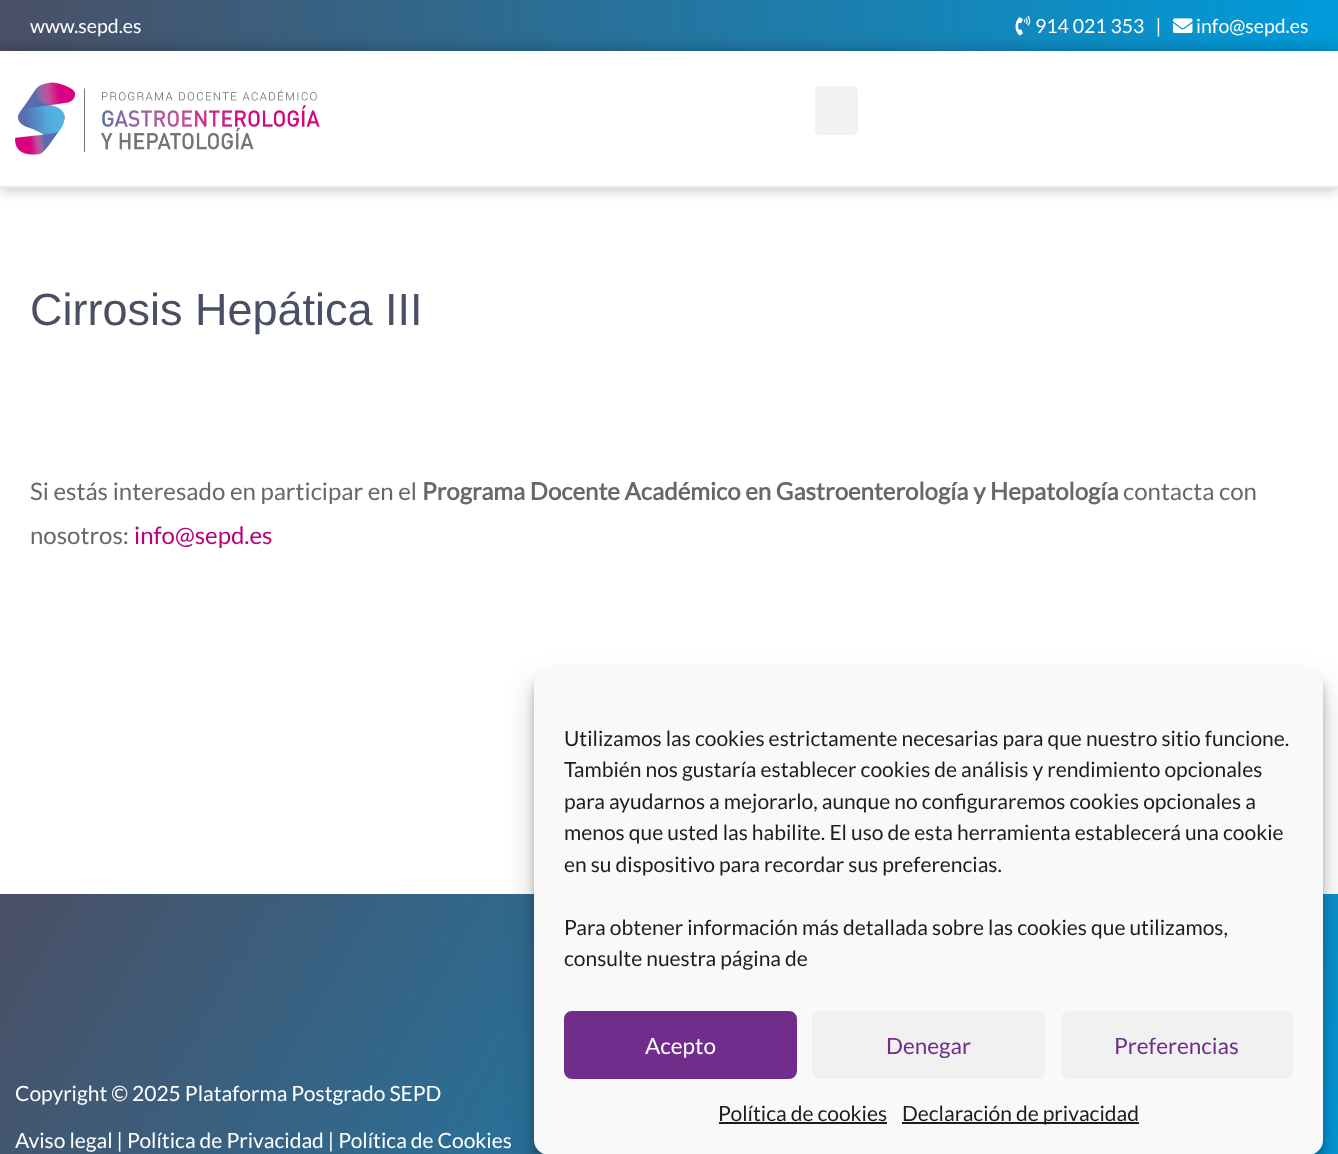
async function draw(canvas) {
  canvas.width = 1338;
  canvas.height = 1154;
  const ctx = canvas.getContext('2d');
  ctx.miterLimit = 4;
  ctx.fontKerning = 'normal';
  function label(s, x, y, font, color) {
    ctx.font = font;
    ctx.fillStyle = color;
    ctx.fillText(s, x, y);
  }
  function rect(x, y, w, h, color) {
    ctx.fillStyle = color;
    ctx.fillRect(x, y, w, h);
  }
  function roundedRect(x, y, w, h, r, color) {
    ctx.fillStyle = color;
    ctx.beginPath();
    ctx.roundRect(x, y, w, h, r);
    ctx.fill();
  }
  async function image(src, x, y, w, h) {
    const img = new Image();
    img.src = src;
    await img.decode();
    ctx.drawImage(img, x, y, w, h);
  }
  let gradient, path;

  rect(0, 0, 1338, 1154, '#fff');
  gradient = ctx.createLinearGradient(0, 26, 1338, 25);
  gradient.addColorStop(0, '#4a4f65');
  gradient.addColorStop(1, '#009bda');
  ctx.fillStyle = gradient;
  ctx.fillRect(0, 0, 1338, 51);
  label('www.sepd.es', 30, 33, '19.5px Lato', '#fff');
  await image('assets/img1.png', 1015, 16, 16, 20);
  label('914 021 353   |', 1035, 33, '19.5px Lato', '#fff');
  await image('assets/img2.png', 1173, 18, 20, 15);
  label('info@sepd.es', 1196, 33, '19.5px Lato', '#fff');
  ctx.save();
  path = new Path2D('M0 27H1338V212H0ZM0 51H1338V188H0Z');
  ctx.clip(path, 'evenodd');
  ctx.fillStyle = '#0000004d';
  ctx.filter = 'blur(7.5px)';
  ctx.beginPath();
  ctx.rect(0, 51, 1338, 137);
  ctx.fill();
  ctx.filter = 'none';
  ctx.restore();
  rect(0, 186, 1338, 2, '#eaeaea');
  await image('assets/img3.png', 15, 82, 305, 73);
  roundedRect(815, 86, 43, 49, 5, '#f2f2f2');
  label('Cirrosis Hepática III', 30, 325, '45px Liberation Sans', '#4a4f65');
  label('Si estás interesado en participar en el', 30, 500, '24px Lato', '#68686a');
  label('Programa Docente Académico en Gastroenterología y Hepatología', 422, 500, 'bold 24px Lato', '#68686a');
  label('contacta con', 1123, 500, '24px Lato', '#68686a');
  label('nosotros:', 30, 544, '24px Lato', '#68686a');
  label('info@sepd.es', 134, 544, '24px Lato', '#ba007c');
  gradient = ctx.createLinearGradient(94, 732, 1244, 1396);
  gradient.addColorStop(0, '#4a4f65');
  gradient.addColorStop(1, '#009bda');
  ctx.fillStyle = gradient;
  ctx.fillRect(0, 894, 1338, 260);
  label('Copyright © 2025 Plataforma Postgrado SEPD', 15, 1101, '21px Lato', '#fff');
  label('Aviso legal | Política de Privacidad | Política de Cookies', 15, 1148, '21px Lato', '#fff');
  ctx.fillStyle = '#0000003b';
  ctx.filter = 'blur(4.5px)';
  ctx.beginPath();
  ctx.roundRect(534, 678, 789, 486, 15);
  ctx.fill();
  ctx.filter = 'none';
  ctx.fillStyle = '#00000030';
  ctx.filter = 'blur(15px)';
  ctx.beginPath();
  ctx.roundRect(534, 684, 789, 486, 15);
  ctx.fill();
  ctx.filter = 'none';
  roundedRect(534, 669, 789, 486, 15, '#f9f9f9');
  label('Utilizamos las cookies estrictamente necesarias para que nuestro sitio funcione.', 564, 746, '21px Lato', '#191e23');
  label('También nos gustaría establecer cookies de análisis y rendimiento opcionales', 564, 777, '21px Lato', '#191e23');
  label('para ayudarnos a mejorarlo, aunque no configuraremos cookies opcionales a', 564, 809, '21px Lato', '#191e23');
  label('menos que usted las habilite. El uso de esta herramienta establecerá una cookie', 564, 840, '21px Lato', '#191e23');
  label('en su dispositivo para recordar sus preferencias.', 564, 872, '21px Lato', '#191e23');
  label('Para obtener información más detallada sobre las cookies que utilizamos,', 564, 935, '21px Lato', '#191e23');
  label('consulte nuestra página de', 564, 966, '21px Lato', '#191e23');
  ctx.fillStyle = '#702d8c';
  ctx.beginPath();
  ctx.roundRect(565, 1012, 231, 66, 7);
  ctx.fill();
  ctx.strokeStyle = '#702d8c';
  ctx.lineWidth = 2;
  ctx.stroke();
  label('Acepto', 645, 1054, '22.5px Lato', '#fff');
  roundedRect(812, 1011, 234, 68, 8, '#f1f1f1');
  label('Denegar', 886, 1054, '22.5px Lato', '#702d8c');
  roundedRect(1061, 1011, 232, 68, 8, '#f1f1f1');
  label('Preferencias', 1114, 1054, '22.5px Lato', '#702d8c');
  label('Política de cookies', 718, 1121, '21px Lato', '#191e23');
  rect(719, 1122, 168, 2, '#191e23');
  rect(902, 1122, 237, 2, '#191e23');
  label('Declaración de privacidad', 902, 1121, '21px Lato', '#191e23');
}

draw(document.querySelector('canvas'));
